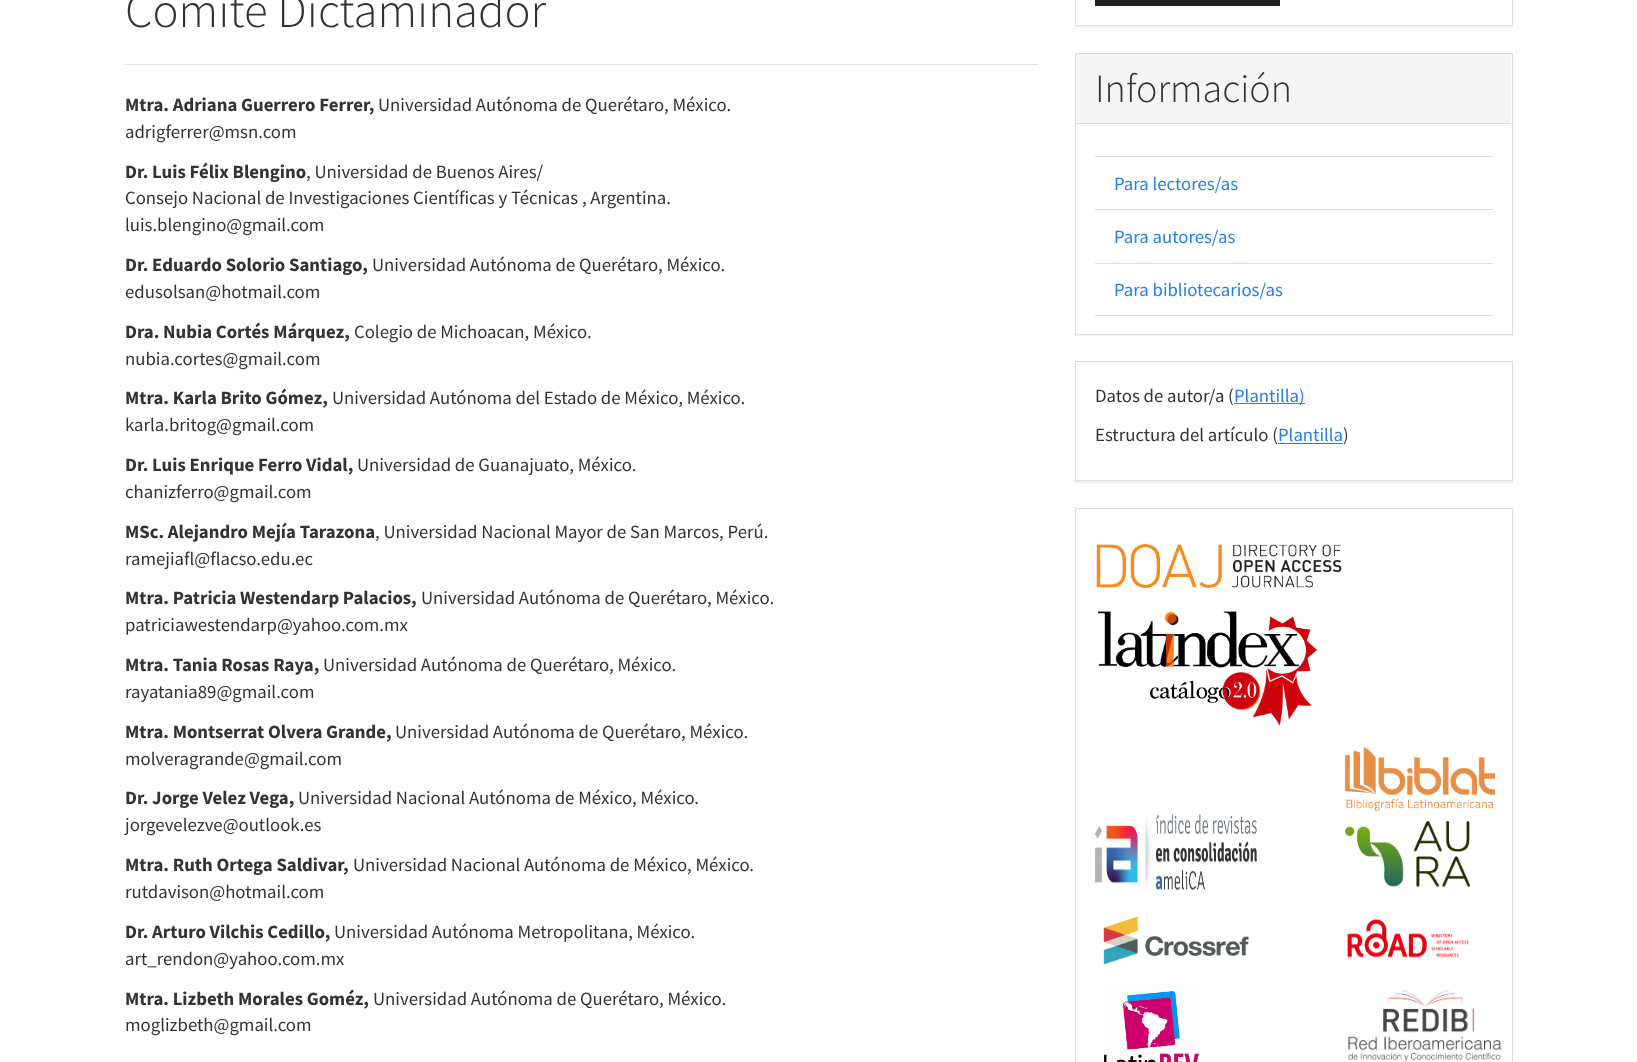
async function draw(canvas) {
  canvas.width = 1637;
  canvas.height = 1062;
  const ctx = canvas.getContext('2d');
  ctx.miterLimit = 4;
  ctx.fontKerning = 'normal';
  function label(s, x, y, font, color) {
    ctx.font = font;
    ctx.fillStyle = color;
    ctx.fillText(s, x, y);
  }
  function rect(x, y, w, h, color) {
    ctx.fillStyle = color;
    ctx.fillRect(x, y, w, h);
  }
  async function image(src, x, y, w, h) {
    const img = new Image();
    img.src = src;
    await img.decode();
    ctx.drawImage(img, x, y, w, h);
  }

  rect(0, 0, 1637, 1062, '#fff');
  rect(125, 64, 913, 1, '#e6e6e6');
  label('Comité Dictaminador', 125, 27, '300 48.75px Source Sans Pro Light', '#333');
  label('Mtra. Adriana Guerrero Ferrer,', 125, 111, 'bold 18.75px Source Sans Pro', '#333');
  label('Universidad Autónoma de Querétaro, México.', 378, 111, '18.75px Source Sans Pro', '#333');
  label('adrigferrer@msn.com', 125, 138, '18.75px Source Sans Pro', '#333');
  label('Dr. Luis Félix Blengino', 125, 178, 'bold 18.75px Source Sans Pro', '#333');
  label(', Universidad de Buenos Aires/', 306, 178, '18.75px Source Sans Pro', '#333');
  label('Consejo Nacional de Investigaciones Científicas y Técnicas , Argentina.', 125, 204, '18.75px Source Sans Pro', '#333');
  label('luis.blengino@gmail.com', 125, 231, '18.75px Source Sans Pro', '#333');
  label('Dr. Eduardo Solorio Santiago,', 125, 271, 'bold 18.75px Source Sans Pro', '#333');
  label('Universidad Autónoma de Querétaro, México.', 372, 271, '18.75px Source Sans Pro', '#333');
  label('edusolsan@hotmail.com', 125, 298, '18.75px Source Sans Pro', '#333');
  label('Dra. Nubia Cortés Márquez,', 125, 338, 'bold 18.75px Source Sans Pro', '#333');
  label('Colegio de Michoacan, México.', 354, 338, '18.75px Source Sans Pro', '#333');
  label('nubia.cortes@gmail.com', 125, 365, '18.75px Source Sans Pro', '#333');
  label('Mtra. Karla Brito Gómez,', 125, 404, 'bold 18.75px Source Sans Pro', '#333');
  label('Universidad Autónoma del Estado de México, México.', 332, 404, '18.75px Source Sans Pro', '#333');
  label('karla.britog@gmail.com', 125, 431, '18.75px Source Sans Pro', '#333');
  label('Dr. Luis Enrique Ferro Vidal,', 125, 471, 'bold 18.75px Source Sans Pro', '#333');
  label('Universidad de Guanajuato, México.', 357, 471, '18.75px Source Sans Pro', '#333');
  label('chanizferro@gmail.com', 125, 498, '18.75px Source Sans Pro', '#333');
  label('MSc. Alejandro Mejía Tarazona', 125, 538, 'bold 18.75px Source Sans Pro', '#333');
  label(', Universidad Nacional Mayor de San Marcos, Perú.', 375, 538, '18.75px Source Sans Pro', '#333');
  label('ramejiafl@flacso.edu.ec', 125, 565, '18.75px Source Sans Pro', '#333');
  label('Mtra. Patricia Westendarp Palacios,', 125, 604, 'bold 18.75px Source Sans Pro', '#333');
  label('Universidad Autónoma de Querétaro, México.', 421, 604, '18.75px Source Sans Pro', '#333');
  label('patriciawestendarp@yahoo.com.mx', 125, 631, '18.75px Source Sans Pro', '#333');
  label('Mtra. Tania Rosas Raya,', 125, 671, 'bold 18.75px Source Sans Pro', '#333');
  label('Universidad Autónoma de Querétaro, México.', 323, 671, '18.75px Source Sans Pro', '#333');
  label('rayatania89@gmail.com', 125, 698, '18.75px Source Sans Pro', '#333');
  label('Mtra. Montserrat Olvera Grande,', 125, 738, 'bold 18.75px Source Sans Pro', '#333');
  label('Universidad Autónoma de Querétaro, México.', 395, 738, '18.75px Source Sans Pro', '#333');
  label('molveragrande@gmail.com', 125, 765, '18.75px Source Sans Pro', '#333');
  label('Dr. Jorge Velez Vega,', 125, 804, 'bold 18.75px Source Sans Pro', '#333');
  label('Universidad Nacional Autónoma de México, México.', 298, 804, '18.75px Source Sans Pro', '#333');
  label('jorgevelezve@outlook.es', 125, 831, '18.75px Source Sans Pro', '#333');
  label('Mtra. Ruth Ortega Saldivar,', 125, 871, 'bold 18.75px Source Sans Pro', '#333');
  label('Universidad Nacional Autónoma de México, México.', 353, 871, '18.75px Source Sans Pro', '#333');
  label('rutdavison@hotmail.com', 125, 898, '18.75px Source Sans Pro', '#333');
  label('Dr. Arturo Vilchis Cedillo,', 125, 938, 'bold 18.75px Source Sans Pro', '#333');
  label('Universidad Autónoma Metropolitana, México.', 334, 938, '18.75px Source Sans Pro', '#333');
  label('art_rendon@yahoo.com.mx', 125, 965, '18.75px Source Sans Pro', '#333');
  label('Mtra. Lizbeth Morales Goméz,', 125, 1005, 'bold 18.75px Source Sans Pro', '#333');
  label('Universidad Autónoma de Querétaro, México.', 373, 1005, '18.75px Source Sans Pro', '#333');
  label('moglizbeth@gmail.com', 125, 1031, '18.75px Source Sans Pro', '#333');
  ctx.fillStyle = '#0000000d';
  ctx.filter = 'blur(0.5px)';
  ctx.beginPath();
  ctx.rect(1075, -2, 438, 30);
  ctx.fill();
  ctx.filter = 'none';
  ctx.fillStyle = '#fff';
  ctx.beginPath();
  ctx.rect(1075.5, -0.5, 437, 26);
  ctx.fill();
  ctx.strokeStyle = '#ddd';
  ctx.stroke();
  rect(1095, 0, 185, 6, '#222');
  ctx.fillStyle = '#0000000d';
  ctx.filter = 'blur(0.5px)';
  ctx.beginPath();
  ctx.rect(1075, 54, 438, 282);
  ctx.fill();
  ctx.filter = 'none';
  ctx.fillStyle = '#fff';
  ctx.beginPath();
  ctx.rect(1075.5, 53.5, 437, 281);
  ctx.fill();
  ctx.stroke();
  rect(1076, 54, 435, 69, '#f5f5f5');
  rect(1076, 123, 435, 1, '#ddd');
  label('Información', 1095, 102, '300 40px Source Sans Pro Light', '#333');
  rect(1095, 156, 398, 1, '#ddd');
  rect(1095, 209, 398, 1, '#ddd');
  label('Para lectores/as', 1114, 190, '18.75px Source Sans Pro', '#2780e3');
  rect(1095, 263, 398, 1, '#ddd');
  label('Para autores/as', 1114, 243, '18.75px Source Sans Pro', '#2780e3');
  rect(1095, 315, 398, 1, '#ddd');
  label('Para bibliotecarios/as', 1114, 296, '18.75px Source Sans Pro', '#2780e3');
  ctx.fillStyle = '#0000000d';
  ctx.filter = 'blur(0.5px)';
  ctx.beginPath();
  ctx.rect(1075, 363, 438, 120);
  ctx.fill();
  ctx.filter = 'none';
  rect(1076, 363, 436, 117, '#fff');
  ctx.strokeRect(1075.5, 361.5, 437, 119);
  label('Datos de autor/a (', 1095, 402, '18.75px Source Sans Pro', '#333');
  rect(1234, 403, 71, 1, '#2780e3');
  label('Plantilla)', 1234, 402, '18.75px Source Sans Pro', '#2780e3');
  label('Estructura del artículo (', 1095, 441, '18.75px Source Sans Pro', '#333');
  label('Plantilla', 1278, 441, '18.75px Source Sans Pro', '#2780e3');
  rect(1278, 443, 65, 1, '#2780e3');
  label(')', 1343, 441, '18.75px Source Sans Pro', '#333');
  ctx.strokeRect(1075.5, 508.5, 437, 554);
  await image('assets/img1.png', 1096, 544, 246, 44);
  await image('assets/img2.png', 1098, 611, 220, 115);
  await image('assets/img3.png', 1345, 747, 150, 64);
  await image('assets/img4.png', 1095, 814, 162, 77);
  await image('assets/img5.png', 1345, 821, 125, 67);
  await image('assets/img6.png', 1103, 916, 146, 49);
  await image('assets/img7.png', 1347, 919, 122, 39);
  await image('assets/img8.png', 1104, 990, 96, 72);
  await image('assets/img9.png', 1347, 990, 155, 72);
}

draw(document.querySelector('canvas'));
